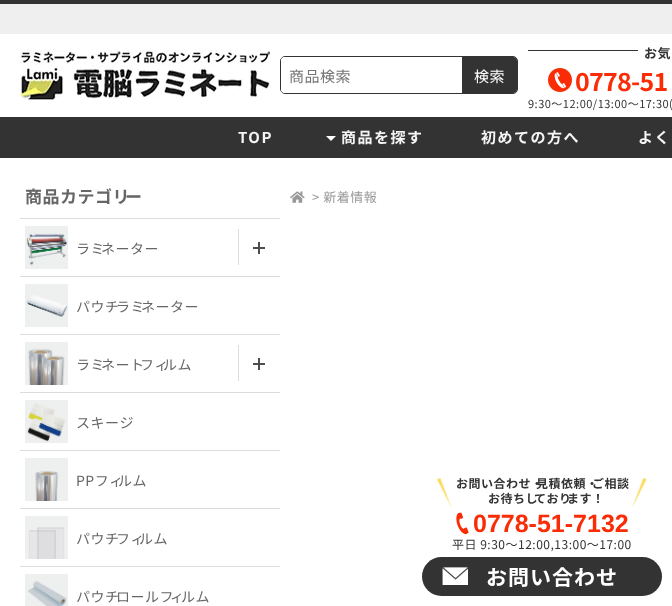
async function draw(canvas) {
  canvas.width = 672;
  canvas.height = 606;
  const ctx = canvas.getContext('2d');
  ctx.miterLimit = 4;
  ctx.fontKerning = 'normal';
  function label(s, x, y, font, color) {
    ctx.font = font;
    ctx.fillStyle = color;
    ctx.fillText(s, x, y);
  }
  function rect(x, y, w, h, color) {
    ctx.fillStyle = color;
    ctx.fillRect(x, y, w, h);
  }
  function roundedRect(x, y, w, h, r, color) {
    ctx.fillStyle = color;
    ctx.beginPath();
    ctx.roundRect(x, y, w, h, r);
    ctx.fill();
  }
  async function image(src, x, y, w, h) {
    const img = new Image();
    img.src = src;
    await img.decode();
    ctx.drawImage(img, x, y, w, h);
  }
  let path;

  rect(0, 0, 672, 606, '#fff');
  rect(0, 0, 672, 4, '#333');
  rect(0, 4, 672, 30, '#efefef');
  await image('assets/img1.png', 20, 50, 250, 50);
  ctx.beginPath();
  ctx.roundRect(280.5, 56.5, 237, 37, 4.5);
  ctx.strokeStyle = '#333';
  ctx.stroke();
  ctx.fillStyle = '#fff';
  ctx.beginPath();
  ctx.roundRect(281, 57, 181, 36, [4, 0, 0, 4]);
  ctx.fill();
  ctx.letterSpacing = '0.5px';
  label('商品検索', 289, 82, '15px Noto Sans JP', '#757575');
  ctx.fillStyle = '#333';
  ctx.beginPath();
  ctx.roundRect(462, 57, 55, 36, [0, 4, 4, 0]);
  ctx.fill();
  label('検索', 474, 82, '15px Noto Sans JP', '#fff');
  rect(528, 50, 110, 1, '#333');
  label('お気', 644, 58, 'bold 13px Noto Sans JP', '#333');
  await image('assets/img2.png', 548, 68, 24, 24);
  ctx.letterSpacing = '-0.75px';
  label('0778-51', 575, 91, 'bold 25px Noto Sans JP', '#fa2c05');
  ctx.letterSpacing = '0.5px';
  label('9:30～12:00/13:00～17:30(', 528, 108, '11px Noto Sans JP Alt', '#333');
  rect(0, 117, 672, 41, '#333');
  ctx.letterSpacing = '1.5px';
  label('TOP', 238, 143, 'bold 15px Noto Sans JP', '#f5f5f5');
  ctx.fillStyle = '#fff';
  path = new Path2D('M326 136H336L331 141Z');
  ctx.fill(path);
  label('商品を探す', 341, 143, 'bold 15px Noto Sans JP', '#f5f5f5');
  label('初めての方へ', 481, 143, 'bold 15px Noto Sans JP', '#f5f5f5');
  label('よく', 638, 143, 'bold 15px Noto Sans JP', '#f5f5f5');
  rect(20, 218, 260, 1, '#dcdcdc');
  ctx.letterSpacing = '0.5px';
  label('商品カテゴリ', 25, 203, 'bold 17px Noto Sans JP', '#666');
  label('ー', 125, 203, 'bold 17px Noto Sans JP', '#666');
  rect(20, 276, 260, 1, '#dcdcdc');
  await image('assets/img3.png', 25, 226, 43, 43);
  label('ラミ', 76, 254, '14px Noto Sans JP', '#666');
  label('ネーター', 101, 254, '14px Noto Sans JP', '#666');
  rect(238, 229, 1, 36, '#dcdcdc');
  rect(253, 247, 12, 2, '#4d4d4d');
  rect(258, 242, 2, 12, '#4d4d4d');
  rect(20, 334, 260, 1, '#dcdcdc');
  await image('assets/img4.png', 25, 284, 43, 43);
  label('パウチ', 76, 312, '14px Noto Sans JP', '#666');
  label('ラミ', 116, 312, '14px Noto Sans JP', '#666');
  label('ネーター', 141, 312, '14px Noto Sans JP', '#666');
  rect(20, 392, 260, 1, '#dcdcdc');
  await image('assets/img5.png', 25, 342, 43, 43);
  label('ラミ', 76, 370, '14px Noto Sans JP', '#666');
  label('ネート', 101, 370, '14px Noto Sans JP', '#666');
  label('フィ', 140, 370, '14px Noto Sans JP', '#666');
  label('ルム', 163, 370, '14px Noto Sans JP', '#666');
  rect(238, 345, 1, 36, '#dcdcdc');
  rect(253, 363, 12, 2, '#4d4d4d');
  rect(258, 358, 2, 12, '#4d4d4d');
  rect(20, 450, 260, 1, '#dcdcdc');
  await image('assets/img6.png', 25, 400, 43, 43);
  label('スキージ', 76, 428, '14px Noto Sans JP', '#666');
  rect(20, 508, 260, 1, '#dcdcdc');
  await image('assets/img7.png', 25, 458, 43, 43);
  label('PPフィ', 76, 486, '14px Noto Sans JP', '#666');
  label('ルム', 118, 486, '14px Noto Sans JP', '#666');
  rect(20, 566, 260, 1, '#dcdcdc');
  await image('assets/img8.png', 25, 516, 43, 43);
  label('パウチ', 76, 544, '14px Noto Sans JP', '#666');
  label('フィ', 116, 544, '14px Noto Sans JP', '#666');
  label('ルム', 139, 544, '14px Noto Sans JP', '#666');
  await image('assets/img9.png', 25, 574, 43, 32);
  label('パウチ', 76, 602, '14px Noto Sans JP', '#666');
  label('ロールフ', 116, 602, '14px Noto Sans JP', '#666');
  label('ィ', 170, 602, '14px Noto Sans JP', '#666');
  label('ルム', 181, 602, '14px Noto Sans JP', '#666');
  await image('assets/img10.png', 290, 191, 15, 12);
  label('> 新着情報', 312, 202, '13px Noto Sans JP', '#999');
  await image('assets/img11.png', 437, 478, 15, 30);
  label('お問い合わせ・', 456, 488, 'bold 12px Noto Sans JP', '#333');
  label('見積依頼・', 536, 488, 'bold 12px Noto Sans JP', '#333');
  label('ご相談', 592, 488, 'bold 12px Noto Sans JP', '#333');
  await image('assets/img12.png', 632, 478, 15, 30);
  label('お待ちし', 488, 503, 'bold 12px Noto Sans JP', '#333');
  label('ており', 534, 503, 'bold 12px Noto Sans JP', '#333');
  label('ます！', 567, 503, 'bold 12px Noto Sans JP', '#333');
  await image('assets/img13.png', 456, 512, 13, 23);
  ctx.letterSpacing = '0px';
  label('0778-51-7132', 473, 532, 'bold 25px Liberation Sans', '#fa2c05');
  ctx.letterSpacing = '0.5px';
  label('平日 9:30～12:00,13:00～17:00', 452, 549, '12px Noto Sans JP', '#333');
  roundedRect(422, 557, 240, 39, 19.5, '#333');
  await image('assets/img14.png', 442, 567, 26, 18);
  ctx.letterSpacing = '1px';
  label('お問い合わせ', 486, 585, 'bold 21px Noto Sans JP', '#fff');
}

draw(document.querySelector('canvas'));
